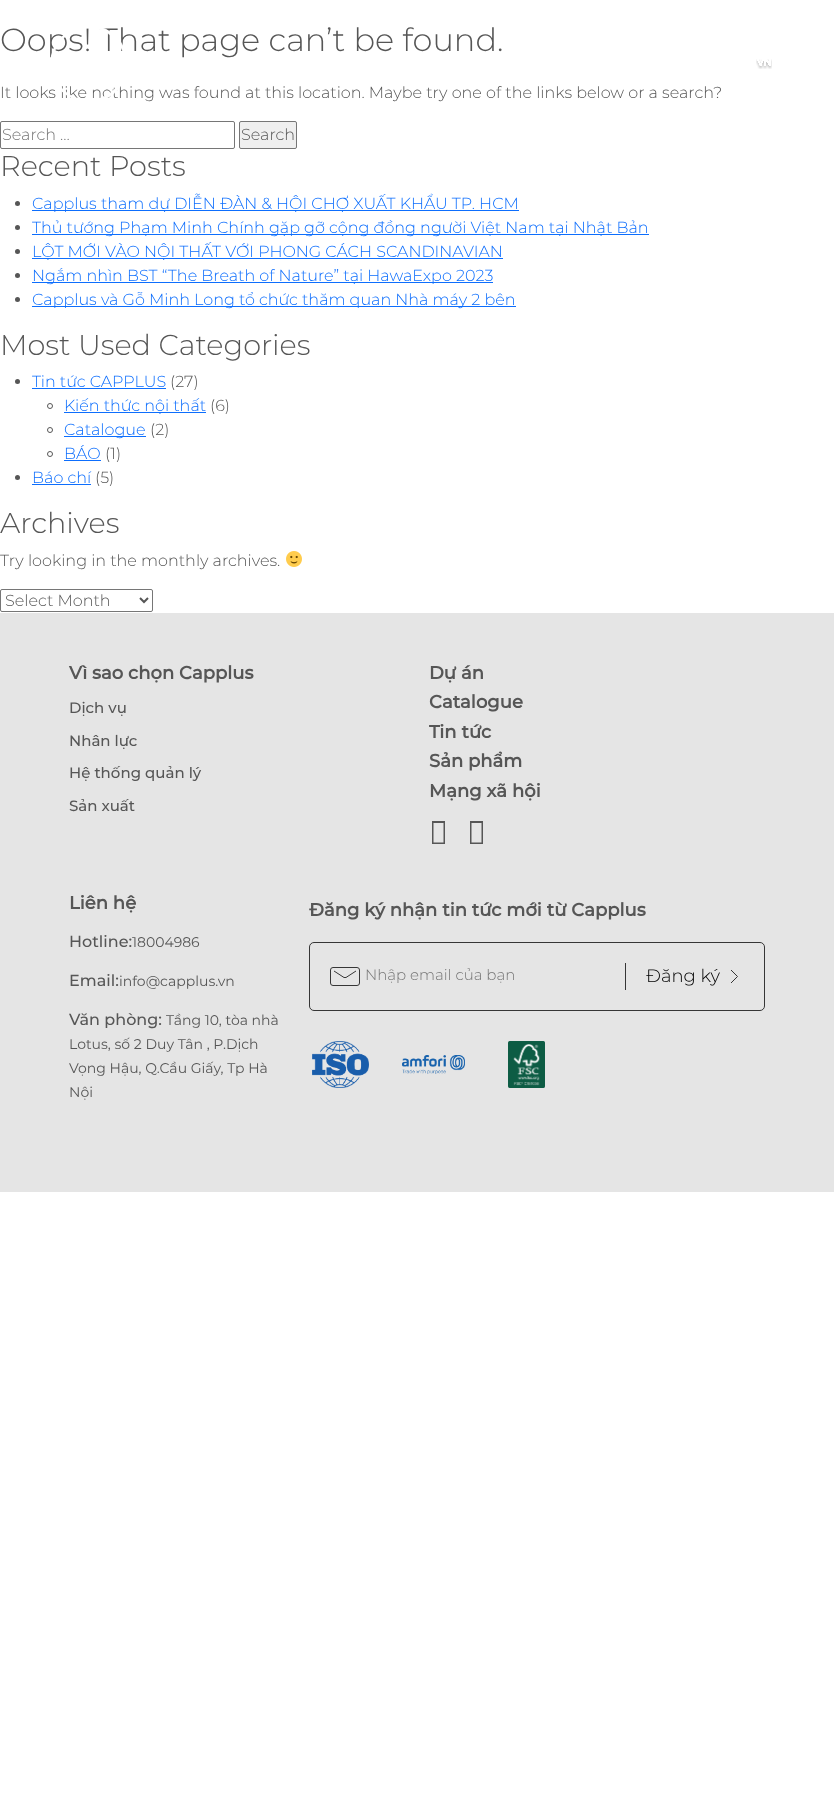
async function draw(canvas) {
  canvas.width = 834;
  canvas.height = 1798;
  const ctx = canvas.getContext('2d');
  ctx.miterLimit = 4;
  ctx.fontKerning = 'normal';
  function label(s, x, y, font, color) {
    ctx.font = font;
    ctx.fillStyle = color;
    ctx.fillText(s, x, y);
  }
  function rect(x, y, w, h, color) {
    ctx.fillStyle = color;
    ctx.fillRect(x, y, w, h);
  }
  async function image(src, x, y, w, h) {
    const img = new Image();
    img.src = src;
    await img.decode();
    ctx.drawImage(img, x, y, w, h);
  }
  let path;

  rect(0, 0, 834, 1798, '#fff');
  label('Oops! That page can’t be found.', 0, 51, '300 32px Montserrat', '#565656');
  label('It looks like nothing was found at this location. Maybe try one of the links below or a search?', 0, 98, '300 16px Montserrat', '#565656');
  ctx.beginPath();
  ctx.roundRect(0.5, 121.5, 234, 27, 1.5);
  ctx.strokeStyle = '#767676';
  ctx.stroke();
  label('Search …', 2, 140, '300 16px Montserrat', '#757575');
  ctx.fillStyle = '#efefef';
  ctx.beginPath();
  ctx.roundRect(239.5, 121.5, 57, 27, 1.5);
  ctx.fill();
  ctx.stroke();
  label('Search', 241, 140, '300 16px Montserrat', '#565656');
  label('Recent Posts', 0, 176, '300 28.75px Montserrat', '#565656');
  ctx.beginPath();
  ctx.arc(17.5, 203.5, 2.5, 0, 2 * Math.PI);
  ctx.fill();
  rect(32, 210, 487, 1, '#0d6efd');
  label('Capplus tham dự DIỄN ĐÀN & HỘI CHỢ XUẤT KHẨU TP. HCM', 32, 209, '300 16px Montserrat', '#0d6efd');
  ctx.fillStyle = '#565656';
  ctx.beginPath();
  ctx.arc(17.5, 227.5, 2.5, 0, 2 * Math.PI);
  ctx.fill();
  rect(32, 234, 617, 1, '#0d6efd');
  label('Thủ tướng Phạm Minh Chính gặp gỡ cộng đồng người Việt Nam tại Nhật Bản', 32, 233, '300 16px Montserrat', '#0d6efd');
  ctx.fillStyle = '#565656';
  ctx.beginPath();
  ctx.arc(17.5, 251.5, 2.5, 0, 2 * Math.PI);
  ctx.fill();
  rect(32, 258, 471, 1, '#0d6efd');
  label('LỘT MỚI VÀO NỘI THẤT VỚI PHONG CÁCH SCANDINAVIAN', 32, 257, '300 16px Montserrat', '#0d6efd');
  ctx.fillStyle = '#565656';
  ctx.beginPath();
  ctx.arc(17.5, 275.5, 2.5, 0, 2 * Math.PI);
  ctx.fill();
  rect(32, 282, 461, 1, '#0d6efd');
  label('Ngắm nhìn BST “The Breath of Nature” tại HawaExpo 2023', 32, 281, '300 16px Montserrat', '#0d6efd');
  ctx.fillStyle = '#565656';
  ctx.beginPath();
  ctx.arc(17.5, 299.5, 2.5, 0, 2 * Math.PI);
  ctx.fill();
  rect(32, 306, 484, 1, '#0d6efd');
  label('Capplus và Gỗ Minh Long tổ chức thăm quan Nhà máy 2 bên', 32, 305, '300 16px Montserrat', '#0d6efd');
  label('Most Used Categories', 0, 355, '300 28.75px Montserrat', '#565656');
  ctx.beginPath();
  ctx.arc(17.5, 381.5, 2.5, 0, 2 * Math.PI);
  ctx.fill();
  label('Tin tức CAPPLUS', 32, 387, '300 16px Montserrat', '#0d6efd');
  rect(32, 388, 134, 1, '#0d6efd');
  label('(27)', 170, 387, '300 16px Montserrat', '#565656');
  ctx.beginPath();
  ctx.arc(50, 406, 2.5, 0, 2 * Math.PI);
  ctx.strokeStyle = '#565656';
  ctx.stroke();
  rect(64, 412, 142, 1, '#0d6efd');
  label('Kiến thức nội thất', 64, 411, '300 16px Montserrat', '#0d6efd');
  label('(6)', 210, 411, '300 16px Montserrat', '#565656');
  ctx.beginPath();
  ctx.arc(50, 430, 2.5, 0, 2 * Math.PI);
  ctx.stroke();
  rect(64, 436, 82, 1, '#0d6efd');
  label('Catalogue', 64, 435, '300 16px Montserrat', '#0d6efd');
  label('(2)', 150, 435, '300 16px Montserrat', '#565656');
  ctx.beginPath();
  ctx.arc(50, 454, 2.5, 0, 2 * Math.PI);
  ctx.stroke();
  label('BÁO', 64, 459, '300 16px Montserrat', '#0d6efd');
  rect(64, 460, 37, 1, '#0d6efd');
  label('(1)', 105, 459, '300 16px Montserrat', '#565656');
  ctx.beginPath();
  ctx.arc(17.5, 477.5, 2.5, 0, 2 * Math.PI);
  ctx.fill();
  label('Báo chí', 32, 483, '300 16px Montserrat', '#0d6efd');
  rect(32, 484, 59, 1, '#0d6efd');
  label('(5)', 95, 483, '300 16px Montserrat', '#565656');
  label('Archives', 0, 533, '300 28.75px Montserrat', '#565656');
  label('Try looking in the monthly archives.', 0, 566, '300 16px Montserrat', '#565656');
  await image('assets/img1.png', 286, 551, 16, 16);
  ctx.beginPath();
  ctx.roundRect(0.5, 589.5, 152, 22, 1.5);
  ctx.strokeStyle = '#767676';
  ctx.stroke();
  path = new Path2D('M140 598L144 602L148 598');
  ctx.strokeStyle = '#565656';
  ctx.lineWidth = 2;
  ctx.stroke(path);
  label('Select Month', 5, 606, '300 16px Montserrat', '#565656');
  await image('assets/img2.png', 50, 28, 73, 70);
  await image('assets/img3.png', 756, 59, 16, 10);
  rect(0, 613, 834, 579, '#e5e5e5');
  label('Vì sao chọn Capplus', 69, 679, 'bold 18px Montserrat', '#565656');
  label('Dịch vụ', 69, 713, '500 15px Montserrat', '#565656');
  label('Nhân lực', 69, 746, '500 15px Montserrat', '#565656');
  label('Hệ thống quản lý', 69, 778, '500 15px Montserrat', '#565656');
  label('Sản xuất', 69, 811, '500 15px Montserrat', '#565656');
  label('Dự án', 429, 679, 'bold 18px Montserrat', '#565656');
  label('Catalogue', 429, 708, 'bold 18px Montserrat', '#565656');
  label('Tin tức', 429, 738, 'bold 18px Montserrat', '#565656');
  label('Sản phẩm', 429, 767, 'bold 18px Montserrat', '#565656');
  label('Mạng xã hội', 429, 797, 'bold 18px Montserrat', '#565656');
  path = new Path2D('M432 844V821H445V844ZM433.5 842.5H443.5V823H433.5ZM470 844V821H483V844ZM471.5 842.5H481.5V823H471.5Z');
  ctx.fill(path);
  label('Liên hệ', 69, 909, 'bold 18px Montserrat', '#565656');
  label('Hotline:', 69, 947, '500 16px Montserrat', '#565656');
  label('18004986', 132, 947, '14px Montserrat', '#565656');
  label('Email:', 69, 986, '500 16px Montserrat', '#565656');
  label('info@capplus.vn', 119, 986, '14px Montserrat', '#565656');
  label('Văn phòng:', 69, 1025, '500 16px Montserrat', '#565656');
  label('Tầng 10, tòa nhà', 166, 1025, '14px Montserrat', '#565656');
  label('Lotus, số 2 Duy Tân , P.Dịch', 69, 1049, '14px Montserrat', '#565656');
  label('Vọng Hậu, Q.Cầu Giấy, Tp Hà', 69, 1073, '14px Montserrat', '#565656');
  label('Nội', 69, 1097, '14px Montserrat', '#565656');
  label('Đăng ký nhận tin tức mới từ Capplus', 309, 916, 'bold 18px Montserrat', '#565656');
  ctx.beginPath();
  ctx.roundRect(309.5, 942.5, 455, 68, 4.5);
  ctx.strokeStyle = '#363636';
  ctx.lineWidth = 1;
  ctx.stroke();
  path = new Path2D('M334 971L344 977.5C344.5 977.5 345.5 977.5 346 977.5L356 971');
  ctx.stroke(path);
  ctx.beginPath();
  ctx.roundRect(330.5, 967.5, 29, 18, 2.5);
  ctx.stroke();
  label('Nhập email của bạn', 365, 980, '300 15px Montserrat', '#757575');
  rect(625, 963, 1, 27, '#363636');
  label('Đăng ký', 646, 982, '300 18px Montserrat', '#000');
  path = new Path2D('M731 970L737.5 976.5L731 983');
  ctx.stroke(path);
  await image('assets/img4.png', 312, 1041, 57, 47);
  await image('assets/img5.png', 402, 1055, 63, 19);
  await image('assets/img6.png', 508, 1041, 37, 47);
}

draw(document.querySelector('canvas'));
